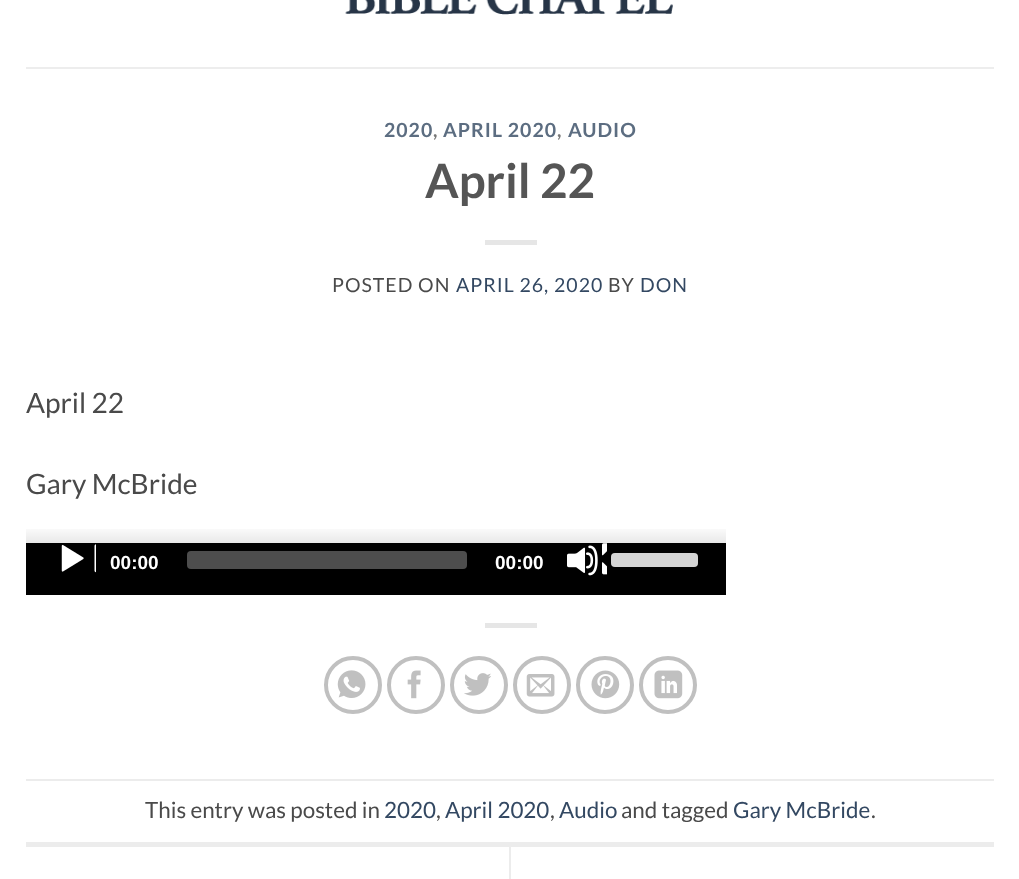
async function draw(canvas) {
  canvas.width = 1019;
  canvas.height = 879;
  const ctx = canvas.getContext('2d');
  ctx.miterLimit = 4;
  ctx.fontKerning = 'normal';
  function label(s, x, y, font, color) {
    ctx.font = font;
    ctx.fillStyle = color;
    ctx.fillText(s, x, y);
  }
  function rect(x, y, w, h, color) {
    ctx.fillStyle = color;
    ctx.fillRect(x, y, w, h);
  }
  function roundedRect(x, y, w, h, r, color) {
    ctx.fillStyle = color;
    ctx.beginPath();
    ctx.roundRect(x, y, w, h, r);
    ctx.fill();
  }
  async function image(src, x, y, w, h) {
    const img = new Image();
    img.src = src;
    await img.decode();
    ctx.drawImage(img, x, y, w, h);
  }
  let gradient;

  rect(0, 0, 1019, 879, '#fff');
  await image('assets/img1.png', 345, 0, 328, 15);
  rect(26, 67, 968, 2, '#ededed');
  ctx.letterSpacing = '1px';
  label('2020', 384, 137, 'bold 19.5px Lato', '#5c6d81');
  label(',', 433, 137, 'bold 19.5px Lato', '#777');
  label('APRIL 2020', 443, 137, 'bold 19.5px Lato', '#5c6d81');
  label(',', 557, 137, 'bold 19.5px Lato', '#777');
  label('AUDIO', 568, 137, 'bold 19.5px Lato', '#5c6d81');
  ctx.letterSpacing = '0px';
  label('April 22', 425, 198, 'bold 47.5px Lato', '#555');
  rect(485, 240, 52, 5, '#e6e6e6');
  ctx.letterSpacing = '1px';
  label('POSTED ON', 332, 292, '19.5px Lato', '#4a4a4a');
  label('APRIL 26, 2020', 456, 292, '19.5px Lato', '#334862');
  label('BY', 608, 292, '19.5px Lato', '#4a4a4a');
  label('DON', 640, 292, '19.5px Lato', '#334862');
  ctx.letterSpacing = '0px';
  label('April 22', 26, 413, '28px Lato', '#4a4a4a');
  label('Gary McBride', 26, 494, '28px Lato', '#4a4a4a');
  rect(26, 543, 700, 52, '#000');
  gradient = ctx.createLinearGradient(376, 525, 376, 595);
  gradient.addColorStop(0, '#00000000');
  gradient.addColorStop(1, '#00000059');
  ctx.fillStyle = gradient;
  ctx.fillRect(26, 529, 700, 14);
  await image('assets/img2.png', 61, 544, 35, 29);
  label('00:00', 110, 569, 'bold 19px Liberation Sans', '#fff');
  roundedRect(187, 551, 280, 18, 4, '#4d4d4d');
  label('00:00', 495, 569, 'bold 19px Liberation Sans', '#fff');
  await image('assets/img3.png', 567, 543, 40, 33);
  roundedRect(611, 553, 87, 14, 4, '#282828');
  roundedRect(611, 553, 87, 14, 4, '#ffffffcc');
  rect(485, 623, 52, 5, '#e6e6e6');
  ctx.beginPath();
  ctx.arc(353, 685, 27, 0, 2 * Math.PI);
  ctx.strokeStyle = '#c0c0c0';
  ctx.lineWidth = 4;
  ctx.stroke();
  await image('assets/img4.png', 337, 670, 29, 28);
  ctx.beginPath();
  ctx.arc(416, 685, 27, 0, 2 * Math.PI);
  ctx.stroke();
  await image('assets/img5.png', 407, 670, 14, 29);
  ctx.beginPath();
  ctx.arc(479, 685, 27, 0, 2 * Math.PI);
  ctx.stroke();
  await image('assets/img6.png', 464, 673, 27, 23);
  ctx.beginPath();
  ctx.arc(542, 685, 27, 0, 2 * Math.PI);
  ctx.stroke();
  await image('assets/img7.png', 526, 674, 29, 23);
  ctx.beginPath();
  ctx.arc(605, 685, 27, 0, 2 * Math.PI);
  ctx.stroke();
  await image('assets/img8.png', 591, 670, 29, 29);
  ctx.beginPath();
  ctx.arc(668, 685, 27, 0, 2 * Math.PI);
  ctx.stroke();
  await image('assets/img9.png', 654, 670, 29, 29);
  rect(26, 779, 968, 2, '#ececec');
  rect(26, 842, 968, 5, '#ececec');
  label('This entry was posted in', 145, 818, '22.4px Lato', '#4a4a4a');
  label('2020', 384, 818, '22.4px Lato', '#334862');
  label(',', 436, 818, '22.4px Lato', '#4a4a4a');
  label('April 2020', 445, 818, '22.4px Lato', '#334862');
  label(',', 550, 818, '22.4px Lato', '#4a4a4a');
  label('Audio', 559, 818, '22.4px Lato', '#334862');
  label('and tagged', 621, 818, '22.4px Lato', '#4a4a4a');
  label('Gary McBride', 733, 818, '22.4px Lato', '#334862');
  label('.', 871, 818, '22.4px Lato', '#4a4a4a');
  rect(509, 847, 2, 32, '#ececec');
}

draw(document.querySelector('canvas'));
